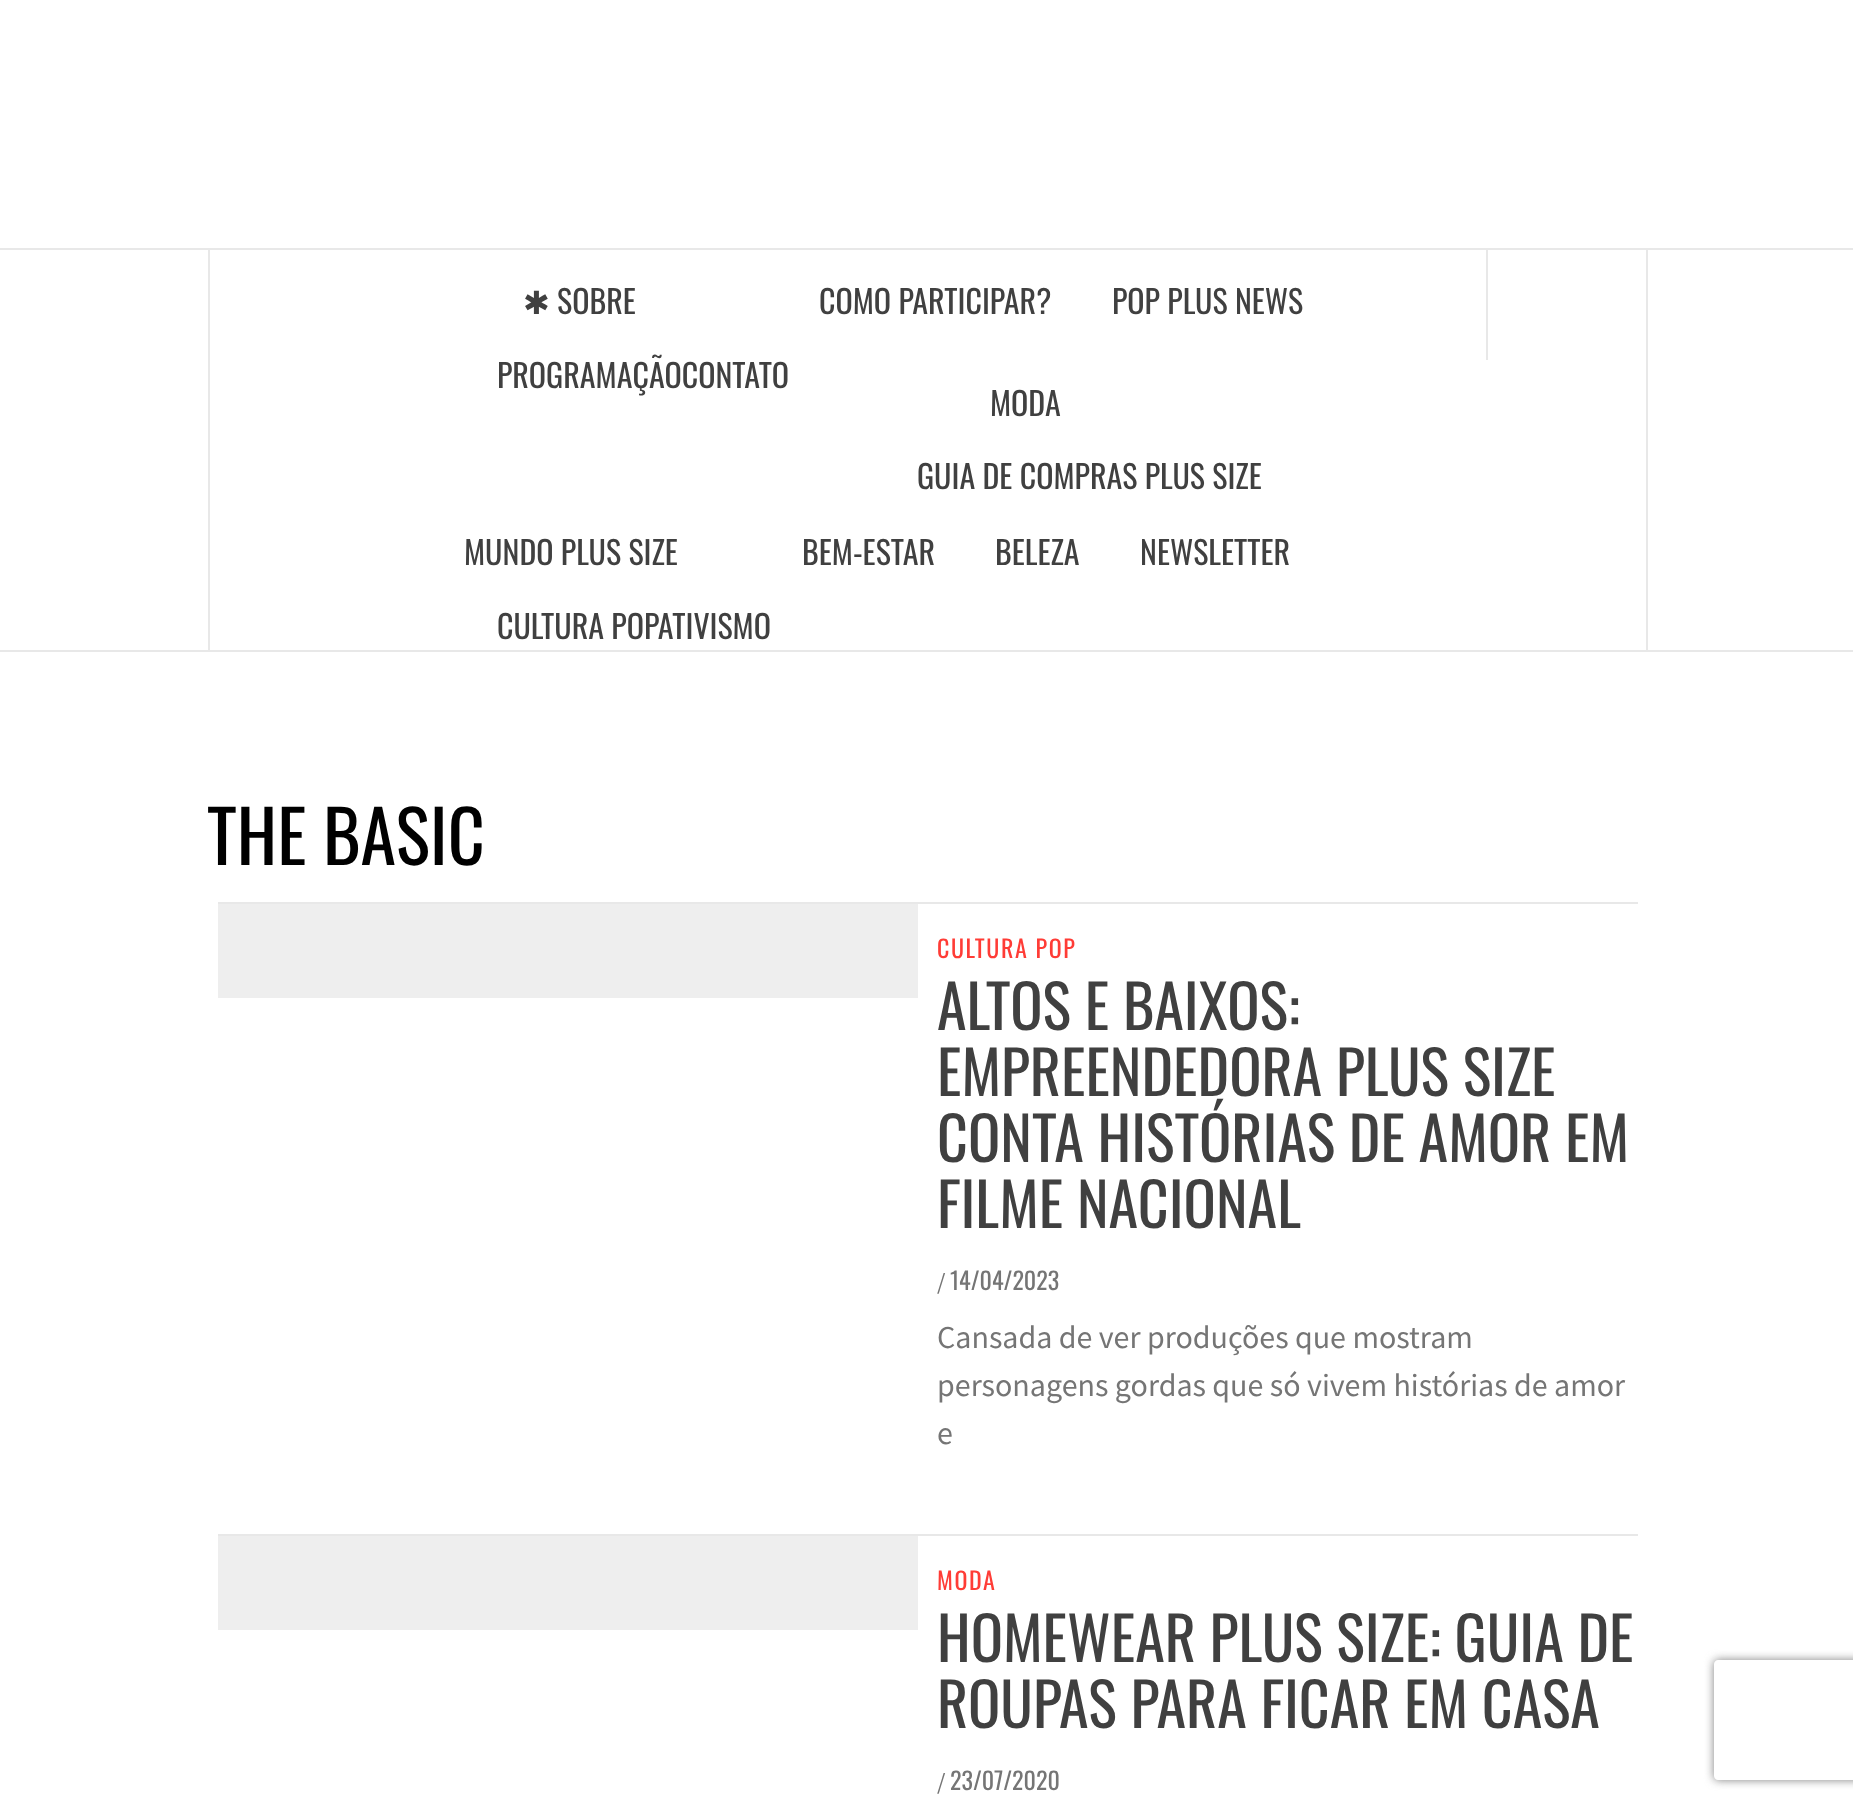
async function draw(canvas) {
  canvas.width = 1853;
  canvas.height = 1808;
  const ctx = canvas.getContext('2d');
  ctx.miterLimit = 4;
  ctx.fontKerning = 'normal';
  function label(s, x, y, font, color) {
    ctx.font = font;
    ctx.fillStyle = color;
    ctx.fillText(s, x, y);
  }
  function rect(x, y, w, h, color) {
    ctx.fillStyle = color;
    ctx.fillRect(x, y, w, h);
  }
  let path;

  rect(0, 0, 1853, 1808, '#fff');
  rect(0, 248, 1853, 2, '#e8e8e8');
  rect(0, 650, 1853, 2, '#e8e8e8');
  rect(1646, 250, 2, 400, '#e8e8e8');
  rect(208, 250, 2, 400, '#e8e8e8');
  label('✱', 523, 314, '32px DejaVu Sans', '#404040');
  label('SOBRE', 557, 314, '32px Oswald', '#404040');
  label('PROGRAMAÇÃOCONTATO', 497, 388, '32px Oswald', '#404040');
  label('COMO PARTICIPAR?', 819, 314, '32px Oswald', '#404040');
  label('POP PLUS NEWS', 1112, 314, '32px Oswald', '#404040');
  label('MODA', 990, 416, '32px Oswald', '#404040');
  label('GUIA DE COMPRAS PLUS SIZE', 917, 489, '32px Oswald', '#404040');
  label('MUNDO PLUS SIZE', 464, 565, '32px Oswald', '#404040');
  label('CULTURA POPATIVISMO', 497, 639, '32px Oswald', '#404040');
  label('BEM-ESTAR', 802, 565, '32px Oswald', '#404040');
  label('BELEZA', 995, 565, '32px Oswald', '#404040');
  label('NEWSLETTER', 1140, 565, '32px Oswald', '#404040');
  rect(1486, 250, 2, 110, '#e8e8e8');
  label('THE BASIC', 207, 865, '72px Oswald', '#000');
  rect(218, 902, 1420, 2, '#e8e8e8');
  rect(218, 904, 700, 94, '#eee');
  ctx.letterSpacing = '1.6px';
  label('CULTURA POP', 937, 958, '24px Oswald', '#ff3c36');
  ctx.letterSpacing = '0px';
  label('ALTOS E BAIXOS:', 937, 1030, '60px Oswald', '#404040');
  label('EMPREENDEDORA PLUS SIZE', 937, 1096, '60px Oswald', '#404040');
  label('CONTA HISTÓRIAS DE AMOR EM', 937, 1162, '60px Oswald', '#404040');
  label('FILME NACIONAL', 937, 1228, '60px Oswald', '#404040');
  label('/', 937, 1290, '24px Source Sans Pro', '#757575');
  label('14/04/2023', 950, 1290, '24px Oswald', '#757575');
  label('Cansada de ver produções que mostram', 937, 1348, '32px Source Sans Pro', '#757575');
  label('personagens gordas que só vivem histórias de amor', 937, 1396, '32px Source Sans Pro', '#757575');
  label('e', 937, 1444, '32px Source Sans Pro', '#757575');
  rect(218, 1534, 1420, 2, '#e8e8e8');
  rect(218, 1536, 700, 94, '#eee');
  ctx.letterSpacing = '1.6px';
  label('MODA', 937, 1590, '24px Oswald', '#ff3c36');
  ctx.letterSpacing = '0px';
  label('HOMEWEAR PLUS SIZE: GUIA DE', 937, 1662, '60px Oswald', '#404040');
  label('ROUPAS PARA FICAR EM CASA', 937, 1728, '60px Oswald', '#404040');
  label('/', 937, 1790, '24px Source Sans Pro', '#757575');
  label('23/07/2020', 950, 1790, '24px Oswald', '#757575');
  ctx.save();
  path = new Path2D('M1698 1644H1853V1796H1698ZM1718 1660H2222C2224 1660 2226 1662 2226 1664V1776C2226 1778 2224 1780 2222 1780H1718C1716 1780 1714 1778 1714 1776V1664C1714 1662 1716 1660 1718 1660Z');
  ctx.clip(path, 'evenodd');
  ctx.fillStyle = '#808080';
  ctx.filter = 'blur(5px)';
  ctx.beginPath();
  ctx.roundRect(1714, 1660, 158, 120, 4);
  ctx.fill();
  ctx.filter = 'none';
  ctx.restore();
}

draw(document.querySelector('canvas'));
